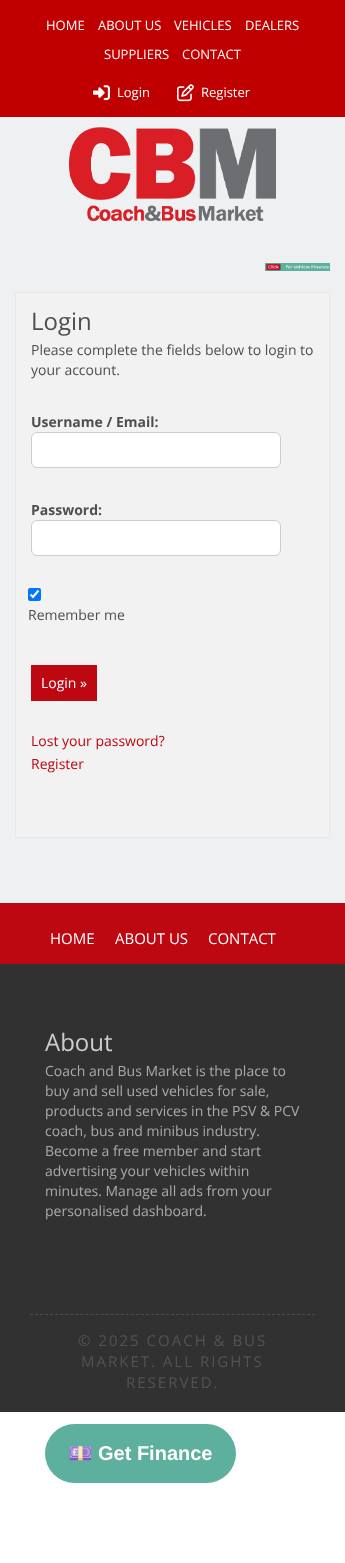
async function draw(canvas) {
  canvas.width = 345;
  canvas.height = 1563;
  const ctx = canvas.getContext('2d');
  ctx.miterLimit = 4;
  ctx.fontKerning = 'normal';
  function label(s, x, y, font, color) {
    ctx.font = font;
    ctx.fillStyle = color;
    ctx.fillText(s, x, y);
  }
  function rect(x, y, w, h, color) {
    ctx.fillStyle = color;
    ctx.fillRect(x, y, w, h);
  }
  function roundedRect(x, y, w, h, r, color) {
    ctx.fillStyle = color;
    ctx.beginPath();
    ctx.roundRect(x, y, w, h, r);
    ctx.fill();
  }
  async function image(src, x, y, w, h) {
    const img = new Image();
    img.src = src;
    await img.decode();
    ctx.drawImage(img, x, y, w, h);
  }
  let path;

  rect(0, 0, 345, 1563, '#fff');
  rect(0, 0, 345, 117, '#c00000');
  label('HOME', 46, 30, '13px Open Sans', '#fff');
  label('ABOUT US', 98, 30, '13px Open Sans', '#fff');
  label('VEHICLES', 174, 30, '13px Open Sans', '#fff');
  label('DEALERS', 245, 30, '13px Open Sans', '#fff');
  label('SUPPLIERS', 104, 59, '13px Open Sans', '#fff');
  label('CONTACT', 182, 59, '13px Open Sans', '#fff');
  await image('assets/img1.png', 93, 85, 17, 16);
  label('Login', 117, 97, '13px Open Sans', '#fff');
  await image('assets/img2.png', 177, 84, 17, 18);
  label('Register', 201, 97, '13px Open Sans', '#fff');
  rect(0, 117, 345, 786, '#eff0f1');
  await image('assets/img3.png', 69, 127, 207, 94);
  await image('assets/img4.png', 265, 263, 65, 8);
  ctx.fillStyle = '#f2f2f2';
  ctx.beginPath();
  ctx.rect(15.5, 292.5, 314, 545);
  ctx.fill();
  ctx.strokeStyle = '#e8e8e8';
  ctx.stroke();
  label('Login', 31, 330, '24px Open Sans', '#4f4f4f');
  label('Please complete the fields below to login to', 31, 355, '14px Open Sans', '#4f4f4f');
  label('your account.', 31, 375, '14px Open Sans', '#4f4f4f');
  label('Username / Email:', 31, 427, 'bold 14px Open Sans', '#4f4f4f');
  ctx.fillStyle = '#fff';
  ctx.beginPath();
  ctx.roundRect(31.5, 432.5, 249, 35, 5.5);
  ctx.fill();
  ctx.strokeStyle = '#ccc';
  ctx.stroke();
  label('Password:', 31, 515, 'bold 14px Open Sans', '#4f4f4f');
  ctx.fillStyle = '#fff';
  ctx.beginPath();
  ctx.roundRect(31.5, 520.5, 249, 35, 5.5);
  ctx.fill();
  ctx.stroke();
  roundedRect(28, 588, 13, 13, 2, '#0075ff');
  path = new Path2D('M30.5 594.5L33 597L38.5 590.5');
  ctx.strokeStyle = '#fff';
  ctx.lineWidth = 2.1;
  ctx.stroke(path);
  label('Remember me', 28, 620, '14px Open Sans', '#4f4f4f');
  rect(31, 665, 66, 36, '#bd0711');
  label('Login »', 41, 688, '14px Open Sans', '#fff');
  label('Lost your password?', 31, 746, '14px Open Sans', '#bd0711');
  label('Register', 31, 769, '14px Open Sans', '#bd0711');
  rect(0, 903, 345, 61, '#bd0711');
  label('HOME', 50, 944, '15px Open Sans', '#fff');
  label('ABOUT US', 115, 944, '15px Open Sans', '#fff');
  label('CONTACT', 208, 944, '15px Open Sans', '#fff');
  rect(0, 964, 345, 448, '#313131');
  label('About', 45, 1051, '24px Open Sans', '#ccc');
  label('Coach and Bus Market is the place to', 45, 1076, '14px Open Sans', '#aaa');
  label('buy and sell used vehicles for sale,', 45, 1096, '14px Open Sans', '#aaa');
  label('products and services in the PSV & PCV', 45, 1116, '14px Open Sans', '#aaa');
  label('coach, bus and minibus industry.', 45, 1136, '14px Open Sans', '#aaa');
  label('Become a free member and start', 45, 1156, '14px Open Sans', '#aaa');
  label('advertising your vehicles within', 45, 1176, '14px Open Sans', '#aaa');
  label('minutes. Manage all ads from your', 45, 1196, '14px Open Sans', '#aaa');
  label('personalised dashboard.', 45, 1216, '14px Open Sans', '#aaa');
  roundedRect(45, 1424, 191, 59, 29.5, '#5db09d');
  label('💷', 68, 1460, 'bold 20px Noto Color Emoji', '#fff');
  label('Get Finance', 98, 1460, 'bold 20px Liberation Sans', '#fff');
  path = new Path2D('M30 1314.5H315');
  ctx.strokeStyle = '#4e4e4e';
  ctx.lineWidth = 1;
  ctx.setLineDash([3, 2.04]);
  ctx.stroke(path);
  ctx.letterSpacing = '2px';
  label('© 2025 COACH & BUS', 78, 1346, '15px Open Sans', '#555252');
  label('MARKET. ALL RIGHTS', 81, 1367, '15px Open Sans', '#555252');
  label('RESERVED.', 126, 1388, '15px Open Sans', '#555252');
}

draw(document.querySelector('canvas'));
